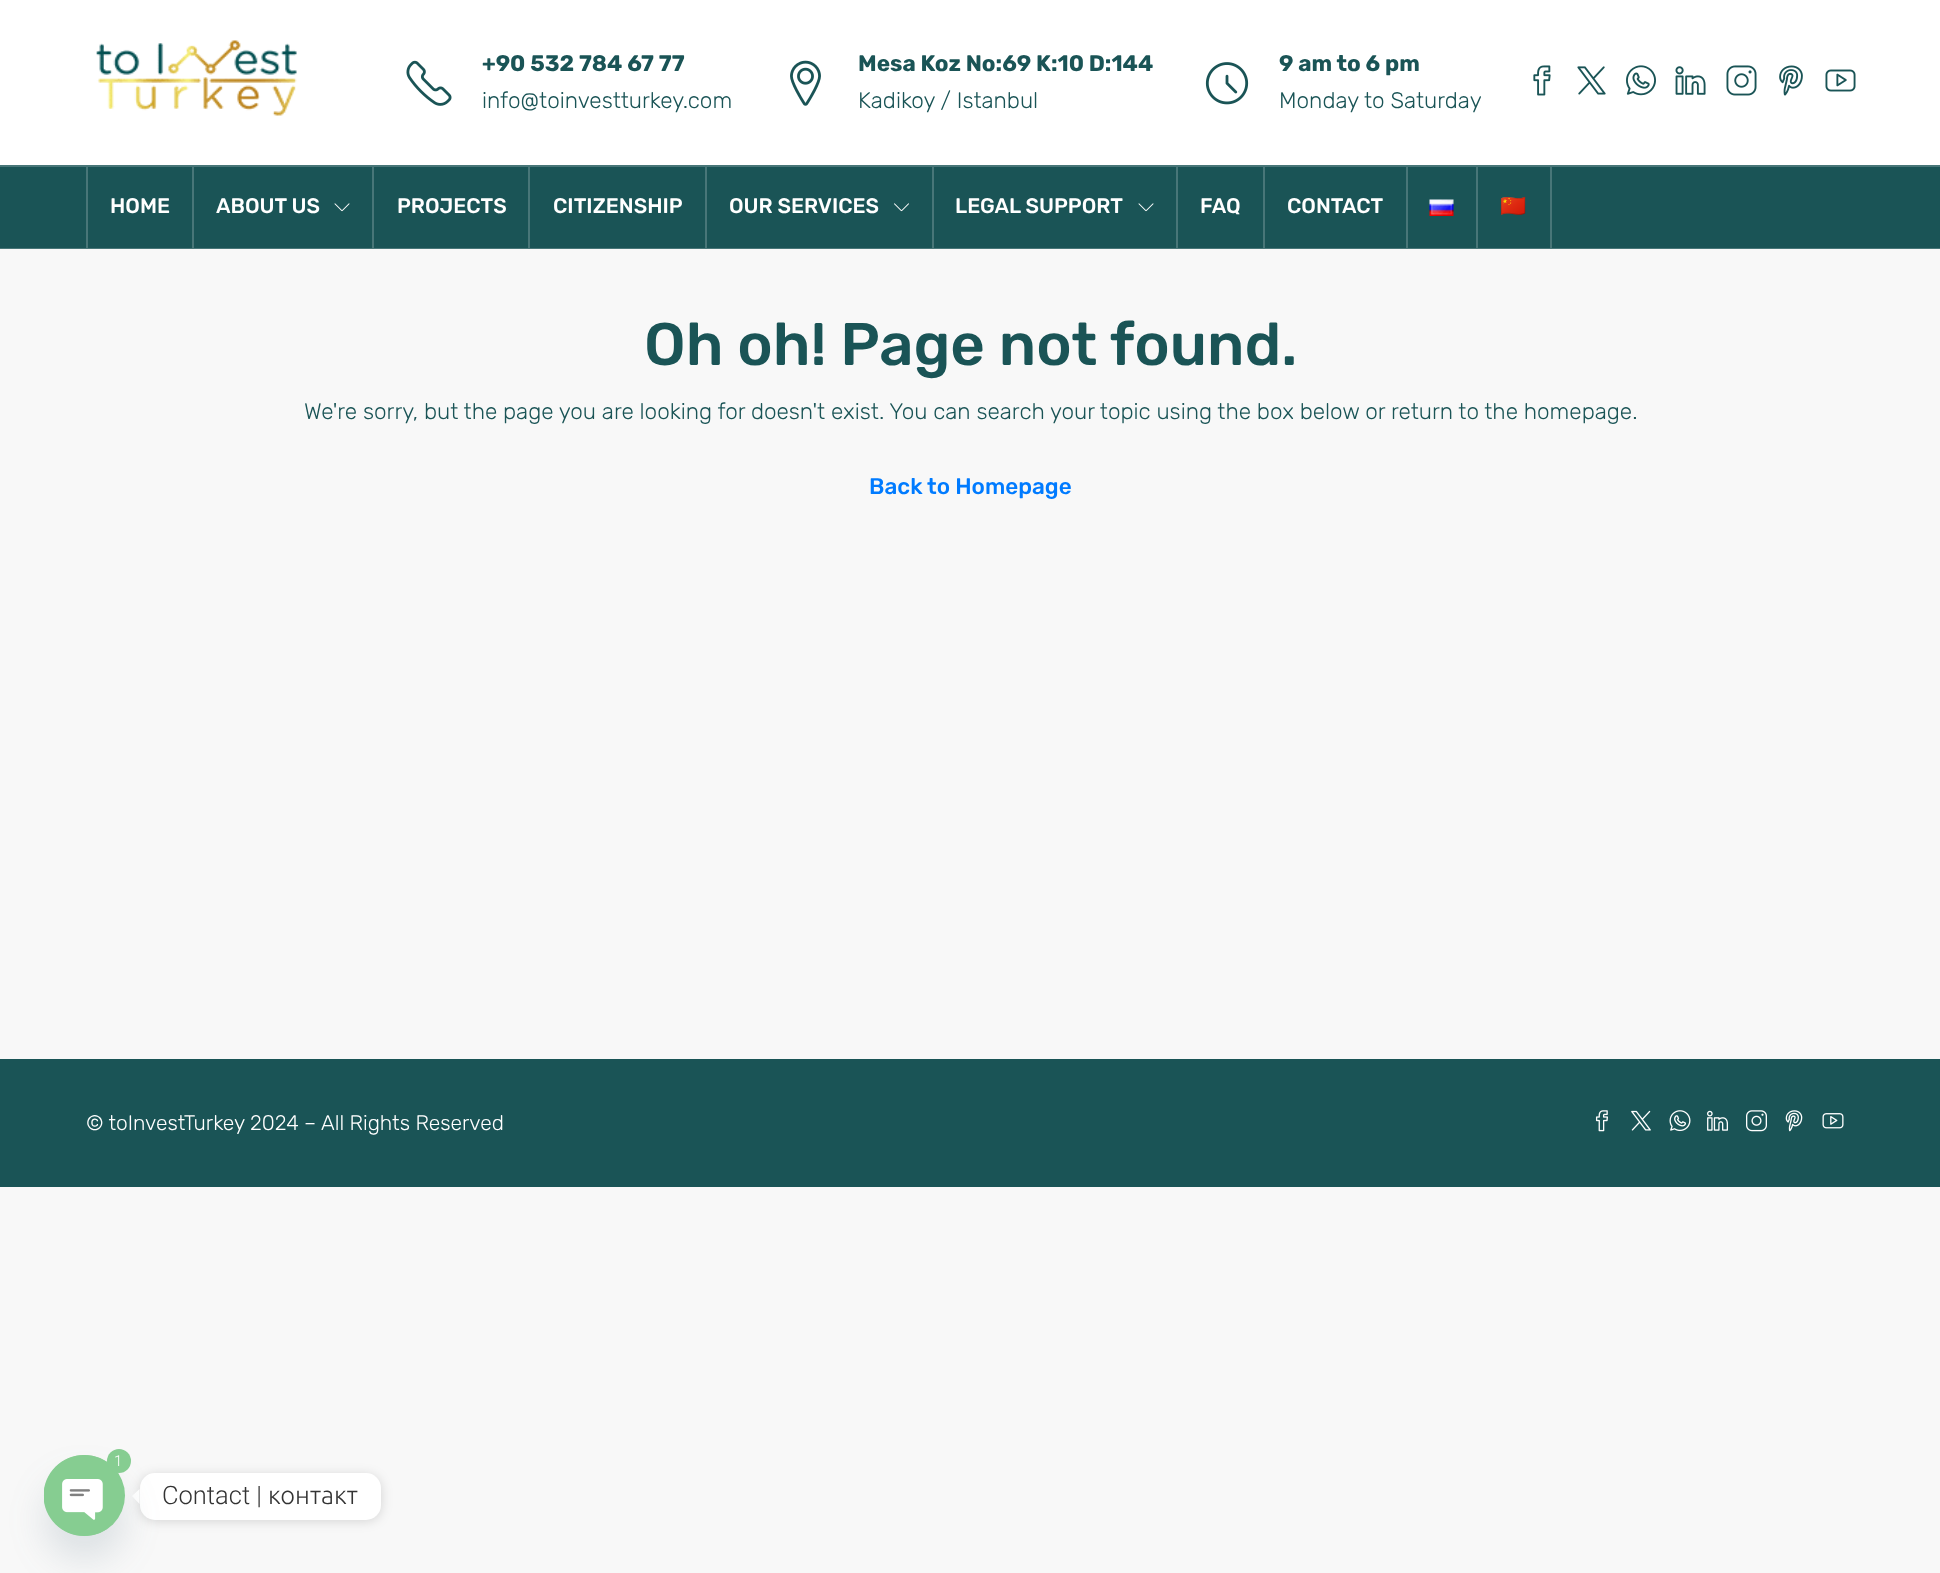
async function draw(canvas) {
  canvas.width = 1940;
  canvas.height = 1573;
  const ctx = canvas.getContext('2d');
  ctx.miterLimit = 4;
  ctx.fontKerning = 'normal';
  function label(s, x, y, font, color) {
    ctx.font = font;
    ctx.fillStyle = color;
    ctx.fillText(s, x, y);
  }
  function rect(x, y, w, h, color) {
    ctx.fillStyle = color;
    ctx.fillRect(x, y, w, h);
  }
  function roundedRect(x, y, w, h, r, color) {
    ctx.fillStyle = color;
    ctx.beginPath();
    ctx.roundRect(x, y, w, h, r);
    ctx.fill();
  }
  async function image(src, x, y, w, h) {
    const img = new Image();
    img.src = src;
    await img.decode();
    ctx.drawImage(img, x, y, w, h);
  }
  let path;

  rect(0, 0, 1940, 1573, '#f8f8f8');
  rect(0, 0, 1940, 165, '#fff');
  await image('assets/img1.png', 96, 40, 201, 76);
  await image('assets/img2.png', 406, 60, 46, 46);
  label('+90 532 784 67 77', 482, 71, 'bold 22.5px Rubik', '#1a5456');
  label('info@toinvestturkey.com', 482, 108, '300 22.5px Rubik', '#1a5456');
  await image('assets/img3.png', 790, 60, 31, 46);
  label('Mesa Koz No:69 K:10 D:144', 858, 71, 'bold 22.5px Rubik', '#1a5456');
  label('Kadikoy / Istanbul', 858, 108, '300 22.5px Rubik', '#1a5456');
  await image('assets/img4.png', 1205, 62, 44, 43);
  label('9 am to 6 pm', 1279, 71, 'bold 22.5px Rubik', '#1a5456');
  label('Monday to Saturday', 1279, 108, '300 22.5px Rubik', '#1a5456');
  await image('assets/img5.png', 1533, 65, 18, 31);
  await image('assets/img6.png', 1577, 66, 29, 29);
  await image('assets/img7.png', 1626, 65, 30, 31);
  await image('assets/img8.png', 1675, 66, 31, 29);
  await image('assets/img9.png', 1726, 65, 31, 31);
  await image('assets/img10.png', 1779, 65, 24, 31);
  await image('assets/img11.png', 1825, 69, 31, 23);
  rect(0, 167, 1940, 81, '#1a5456');
  rect(0, 248, 1940, 1, '#487678');
  rect(0, 165, 1940, 2, '#487678');
  rect(192, 167, 2, 81, '#487678');
  rect(86, 167, 2, 81, '#487678');
  label('HOME', 110, 213, '500 21px Rubik', '#fff');
  rect(372, 167, 2, 81, '#487678');
  label('ABOUT US', 216, 213, '500 21px Rubik', '#fff');
  await image('assets/img12.png', 334, 203, 16, 9);
  rect(528, 167, 2, 81, '#487678');
  label('PROJECTS', 397, 213, '500 21px Rubik', '#fff');
  rect(705, 167, 2, 81, '#487678');
  label('CITIZENSHIP', 553, 213, '500 21px Rubik', '#fff');
  rect(932, 167, 2, 81, '#487678');
  label('OUR SERVICES', 729, 213, '500 21px Rubik', '#fff');
  await image('assets/img13.png', 894, 203, 15, 9);
  rect(1176, 167, 2, 81, '#487678');
  label('LEGAL SUPPORT', 955, 213, '500 21px Rubik', '#fff');
  await image('assets/img12.png', 1138, 203, 16, 9);
  rect(1263, 167, 2, 81, '#487678');
  label('FAQ', 1200, 213, '500 21px Rubik', '#fff');
  rect(1406, 167, 2, 81, '#487678');
  label('CONTACT', 1287, 213, '500 21px Rubik', '#fff');
  rect(1476, 167, 2, 81, '#487678');
  await image('assets/img14.png', 1429, 199, 25, 17);
  rect(1550, 167, 2, 81, '#487678');
  label('🇨🇳', 1500, 213, '21px Noto Color Emoji', '#fff');
  label('Oh oh! Page not found.', 644, 365, '500 60px Rubik', '#1a5456');
  label('We\'re sorry, but the page you are looking for doesn\'t exist. You can search your topic using the box below or return to the homepage.', 304, 419, '300 22.5px Rubik', '#1a5456');
  label('Back to Homepage', 869, 494, '500 22.5px Rubik', '#007bff');
  rect(0, 1059, 1940, 128, '#1a5456');
  label('© toInvestTurkey 2024 – All Rights Reserved', 86, 1130, '300 21px Rubik', '#fff');
  await image('assets/img15.png', 1595, 1110, 13, 22);
  await image('assets/img16.png', 1631, 1110, 20, 21);
  await image('assets/img17.png', 1669, 1110, 22, 22);
  await image('assets/img18.png', 1707, 1110, 21, 21);
  await image('assets/img19.png', 1746, 1110, 21, 22);
  await image('assets/img20.png', 1785, 1110, 18, 22);
  await image('assets/img21.png', 1822, 1113, 22, 16);
  ctx.fillStyle = '#00000026';
  ctx.filter = 'blur(6px)';
  ctx.beginPath();
  ctx.roundRect(140, 1475, 241, 46, 15);
  ctx.fill();
  ctx.filter = 'none';
  roundedRect(140, 1473, 241, 47, 15, '#fff');
  path = new Path2D('M139.5 1489V1504L132 1496Z');
  ctx.fill(path);
  ctx.fillStyle = '#49687e29';
  ctx.filter = 'blur(18px)';
  ctx.beginPath();
  ctx.roundRect(44, 1479, 81, 81, 40.5);
  ctx.fill();
  ctx.filter = 'none';
  ctx.fillStyle = '#86cd91';
  ctx.beginPath();
  ctx.arc(84.5, 1495.5, 40.5, 0, 2 * Math.PI);
  ctx.fill();
  await image('assets/img22.png', 44, 1455, 63, 81);
  ctx.beginPath();
  ctx.arc(119, 1461, 12, 0, 2 * Math.PI);
  ctx.fill();
  label('1', 114, 1466, '300 15px Roboto', '#fff');
  label('Contact |', 162, 1504, '300 25.5px Roboto', '#333');
  label('контакт', 268, 1504, '300 25.5px Ubuntu', '#333');
}

draw(document.querySelector('canvas'));
